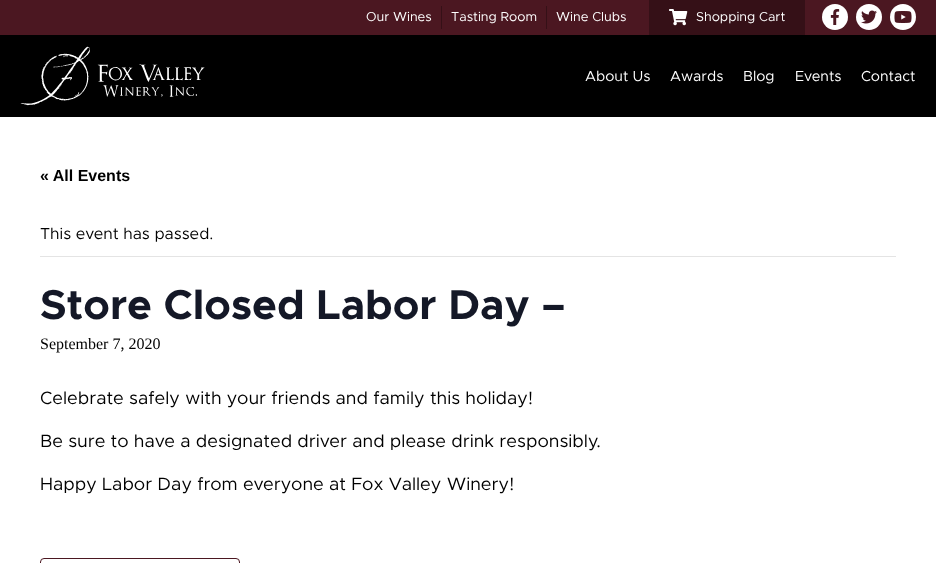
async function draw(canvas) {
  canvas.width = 936;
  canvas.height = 563;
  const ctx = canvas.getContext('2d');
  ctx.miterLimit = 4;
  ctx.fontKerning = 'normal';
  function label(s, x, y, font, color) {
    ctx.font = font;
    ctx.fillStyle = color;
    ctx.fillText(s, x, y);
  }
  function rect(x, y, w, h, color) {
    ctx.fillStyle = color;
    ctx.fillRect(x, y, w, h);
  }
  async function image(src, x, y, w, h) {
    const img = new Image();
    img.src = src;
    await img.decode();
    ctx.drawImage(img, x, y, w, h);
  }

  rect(0, 0, 936, 563, '#000');
  rect(0, 0, 936, 35, '#4b1721');
  rect(441, 6, 1, 23, '#351017');
  label('Our Wines', 366, 21, '13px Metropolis', '#fff');
  rect(546, 6, 1, 23, '#351017');
  label('Tasting Room', 451, 21, '13px Metropolis', '#fff');
  label('Wine Clubs', 556, 21, '13px Metropolis', '#fff');
  rect(649, 0, 156, 35, '#351017');
  await image('assets/img1.png', 669, 9, 19, 17);
  label('Shopping Cart', 696, 21, '13px Metropolis', '#fff');
  ctx.beginPath();
  ctx.arc(835, 17, 13, 0, 2 * Math.PI);
  ctx.fill();
  await image('assets/img2.png', 830, 9, 10, 16);
  ctx.beginPath();
  ctx.arc(869, 17, 13, 0, 2 * Math.PI);
  ctx.fill();
  await image('assets/img3.png', 861, 10, 16, 14);
  ctx.beginPath();
  ctx.arc(903, 17, 13, 0, 2 * Math.PI);
  ctx.fill();
  await image('assets/img4.png', 894, 11, 18, 12);
  await image('assets/img5.png', 20, 46, 185, 60);
  label('About Us', 585, 81, '14.5px Metropolis', '#fff');
  label('Awards', 670, 81, '14.5px Metropolis', '#fff');
  label('Blog', 743, 81, '14.5px Metropolis', '#fff');
  label('Events', 795, 81, '14.5px Metropolis', '#fff');
  label('Contact', 861, 81, '14.5px Metropolis', '#fff');
  rect(0, 117, 936, 446, '#fff');
  label('« All Events', 40, 181, 'bold 16px Liberation Sans', '#000');
  rect(40, 256, 856, 1, '#e4e4e4');
  label('This event has passed.', 40, 239, '16px Metropolis', '#000');
  label('Store Closed Labor Day –', 40, 319, 'bold 42px Metropolis', '#141827');
  label('September 7, 2020', 40, 349, '16px Liberation Serif', '#000');
  label('Celebrate safely with your friends and family this holiday!', 40, 404, '18px Metropolis', '#000');
  label('Be sure to have a designated driver and please drink responsibly.', 40, 447, '18px Metropolis', '#000');
  label('Happy Labor Day from everyone at Fox Valley Winery!', 40, 490, '18px Metropolis', '#000');
  ctx.beginPath();
  ctx.roundRect(40.5, 558.5, 199, 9, 3.5);
  ctx.strokeStyle = '#4b1721';
  ctx.stroke();
}

draw(document.querySelector('canvas'));
